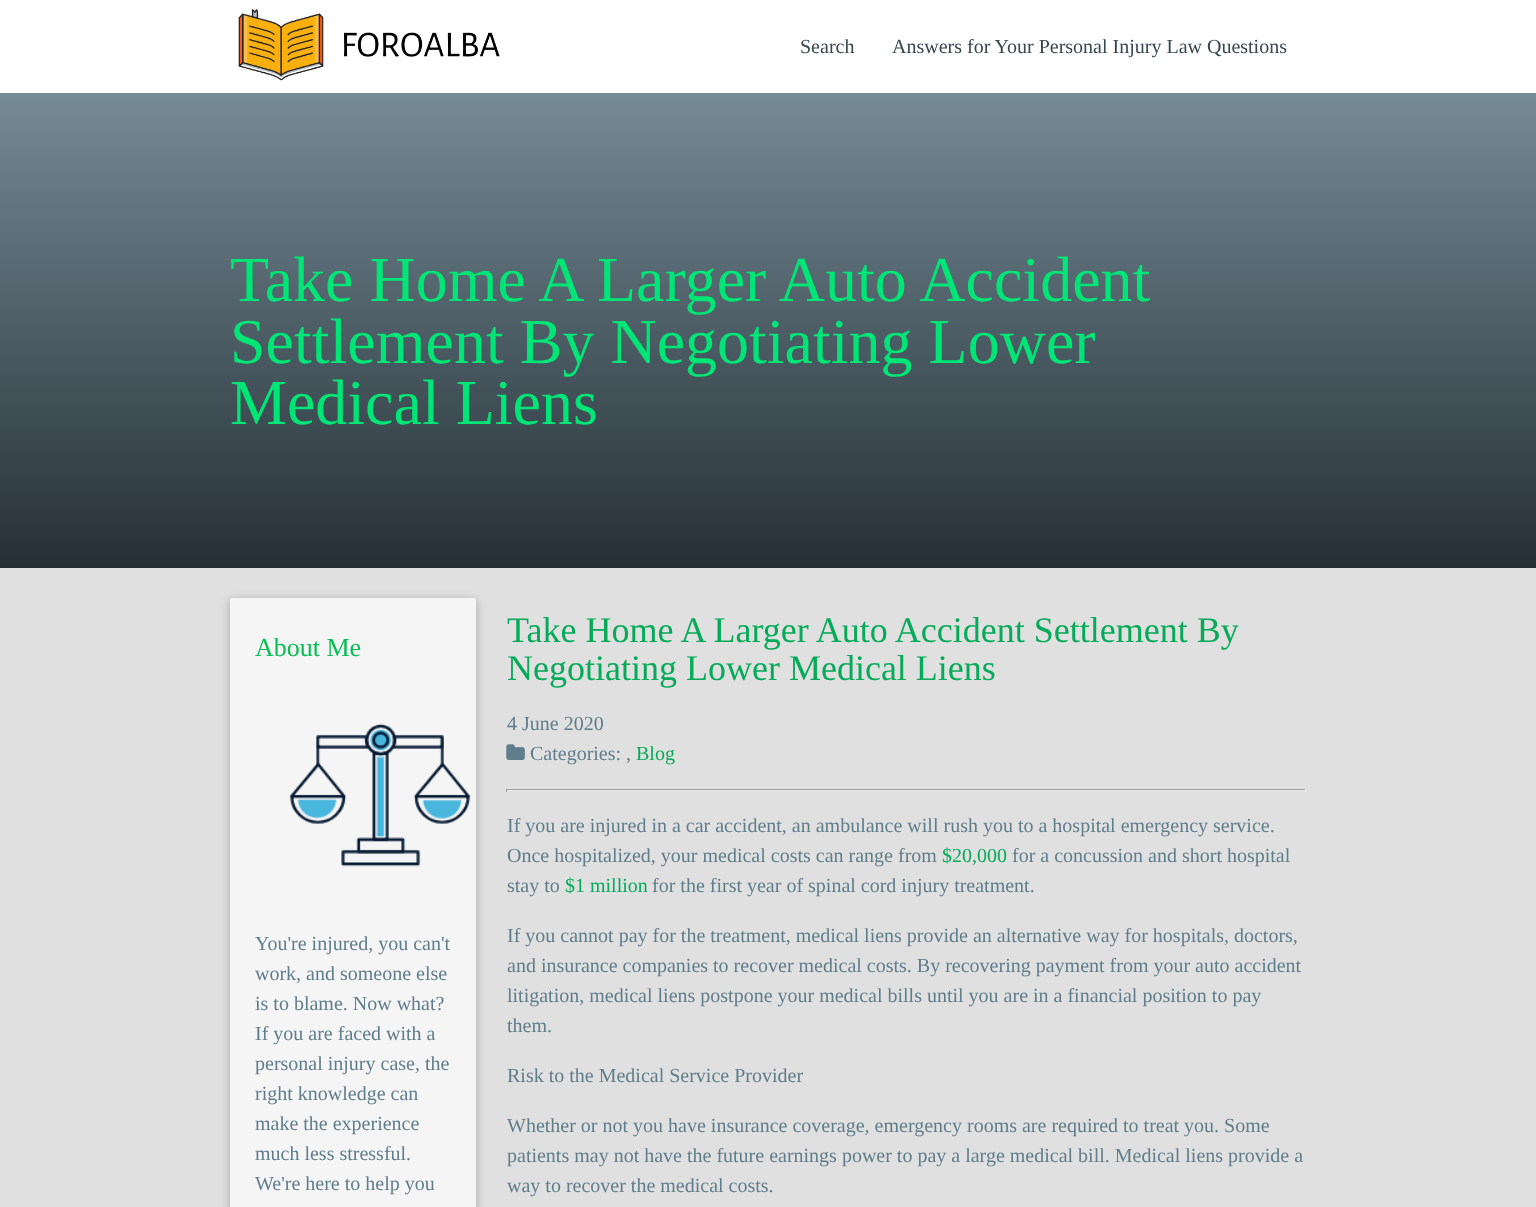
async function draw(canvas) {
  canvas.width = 1536;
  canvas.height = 1207;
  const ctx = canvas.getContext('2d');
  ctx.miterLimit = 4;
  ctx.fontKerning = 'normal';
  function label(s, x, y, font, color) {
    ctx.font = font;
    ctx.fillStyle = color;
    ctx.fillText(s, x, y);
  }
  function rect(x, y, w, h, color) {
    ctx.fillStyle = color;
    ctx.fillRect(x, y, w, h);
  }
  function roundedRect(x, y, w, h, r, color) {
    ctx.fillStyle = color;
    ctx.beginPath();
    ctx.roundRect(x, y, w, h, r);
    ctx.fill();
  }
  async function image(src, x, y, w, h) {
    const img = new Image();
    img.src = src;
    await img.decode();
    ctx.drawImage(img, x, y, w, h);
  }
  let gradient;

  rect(0, 0, 1536, 1207, '#fff');
  await image('assets/img1.png', 238, 9, 262, 72);
  label('Search', 800, 53, '20px Liberation Serif', '#37474f');
  label('Answers for Your Personal Injury Law Questions', 892, 53, '20px Liberation Serif', '#37474f');
  gradient = ctx.createLinearGradient(768, 92, 768, 568);
  gradient.addColorStop(0, '#758b96');
  gradient.addColorStop(1, '#253035');
  ctx.fillStyle = gradient;
  ctx.fillRect(0, 93, 1536, 475);
  label('Take Home A Larger Auto Accident', 230, 301, '64px Liberation Serif', '#00e676');
  label('Settlement By Negotiating Lower', 230, 363, '64px Liberation Serif', '#00e676');
  label('Medical Liens', 230, 424, '64px Liberation Serif', '#00e676');
  rect(0, 568, 1536, 639, '#e0e0e0');
  ctx.fillStyle = '#0000001f';
  ctx.filter = 'blur(6px)';
  ctx.beginPath();
  ctx.roundRect(230, 600, 246, 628, 2.5);
  ctx.fill();
  ctx.filter = 'none';
  ctx.fillStyle = '#00000029';
  ctx.filter = 'blur(3px)';
  ctx.beginPath();
  ctx.roundRect(230, 600, 246, 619, 2.5);
  ctx.fill();
  ctx.filter = 'none';
  roundedRect(230, 598, 246, 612, 2.5, '#f5f5f5');
  label('About Me', 255, 656, '26px Liberation Serif', '#07be54');
  await image('assets/img2.png', 289, 723, 182, 144);
  label('You\'re injured, you can\'t', 255, 950, '20px Liberation Serif', '#607d8b');
  label('work, and someone else', 255, 980, '20px Liberation Serif', '#607d8b');
  label('is to blame. Now what?', 255, 1010, '20px Liberation Serif', '#607d8b');
  label('If you are faced with a', 255, 1040, '20px Liberation Serif', '#607d8b');
  label('personal injury case, the', 255, 1070, '20px Liberation Serif', '#607d8b');
  label('right knowledge can', 255, 1100, '20px Liberation Serif', '#607d8b');
  label('make the experience', 255, 1130, '20px Liberation Serif', '#607d8b');
  label('much less stressful.', 255, 1160, '20px Liberation Serif', '#607d8b');
  label('We\'re here to help you', 255, 1190, '20px Liberation Serif', '#607d8b');
  label('Take Home A Larger Auto Accident Settlement By', 507, 642, '36px Liberation Serif', '#05ab58');
  label('Negotiating Lower Medical Liens', 507, 680, '36px Liberation Serif', '#05ab58');
  label('4 June 2020', 507, 730, '20px Liberation Serif', '#607d8b');
  await image('assets/img3.png', 506, 744, 19, 16);
  label('Categories: ,', 530, 760, '20px Liberation Serif', '#607d8b');
  label('Blog', 636, 760, '20px Liberation Serif', '#05ab58');
  rect(506, 789, 800, 1, '#9f9f9f');
  rect(1305, 789, 1, 3, '#eee');
  rect(506, 790, 800, 1, '#eee');
  rect(506, 789, 1, 3, '#9f9f9f');
  label('If you are injured in a car accident, an ambulance will rush you to a hospital emergency service.', 507, 832, '20px Liberation Serif', '#607d8b');
  label('Once hospitalized, your medical costs can range from', 507, 862, '20px Liberation Serif', '#607d8b');
  label('$20,000', 942, 862, '20px Liberation Serif', '#05ab58');
  label('for a concussion and short hospital', 1012, 862, '20px Liberation Serif', '#607d8b');
  label('stay to', 507, 892, '20px Liberation Serif', '#607d8b');
  label('$1 million', 565, 892, '20px Liberation Serif', '#05ab58');
  label('for the first year of spinal cord injury treatment.', 652, 892, '20px Liberation Serif', '#607d8b');
  label('If you cannot pay for the treatment, medical liens provide an alternative way for hospitals, doctors,', 507, 942, '20px Liberation Serif', '#607d8b');
  label('and insurance companies to recover medical costs. By recovering payment from your auto accident', 507, 972, '20px Liberation Serif', '#607d8b');
  label('litigation, medical liens postpone your medical bills until you are in a financial position to pay', 507, 1002, '20px Liberation Serif', '#607d8b');
  label('them.', 507, 1032, '20px Liberation Serif', '#607d8b');
  label('Risk to the Medical Service Provider', 507, 1082, '20px Liberation Serif', '#607d8b');
  label('Whether or not you have insurance coverage, emergency rooms are required to treat you. Some', 507, 1132, '20px Liberation Serif', '#607d8b');
  label('patients may not have the future earnings power to pay a large medical bill. Medical liens provide a', 507, 1162, '20px Liberation Serif', '#607d8b');
  label('way to recover the medical costs.', 507, 1192, '20px Liberation Serif', '#607d8b');
}

draw(document.querySelector('canvas'));
